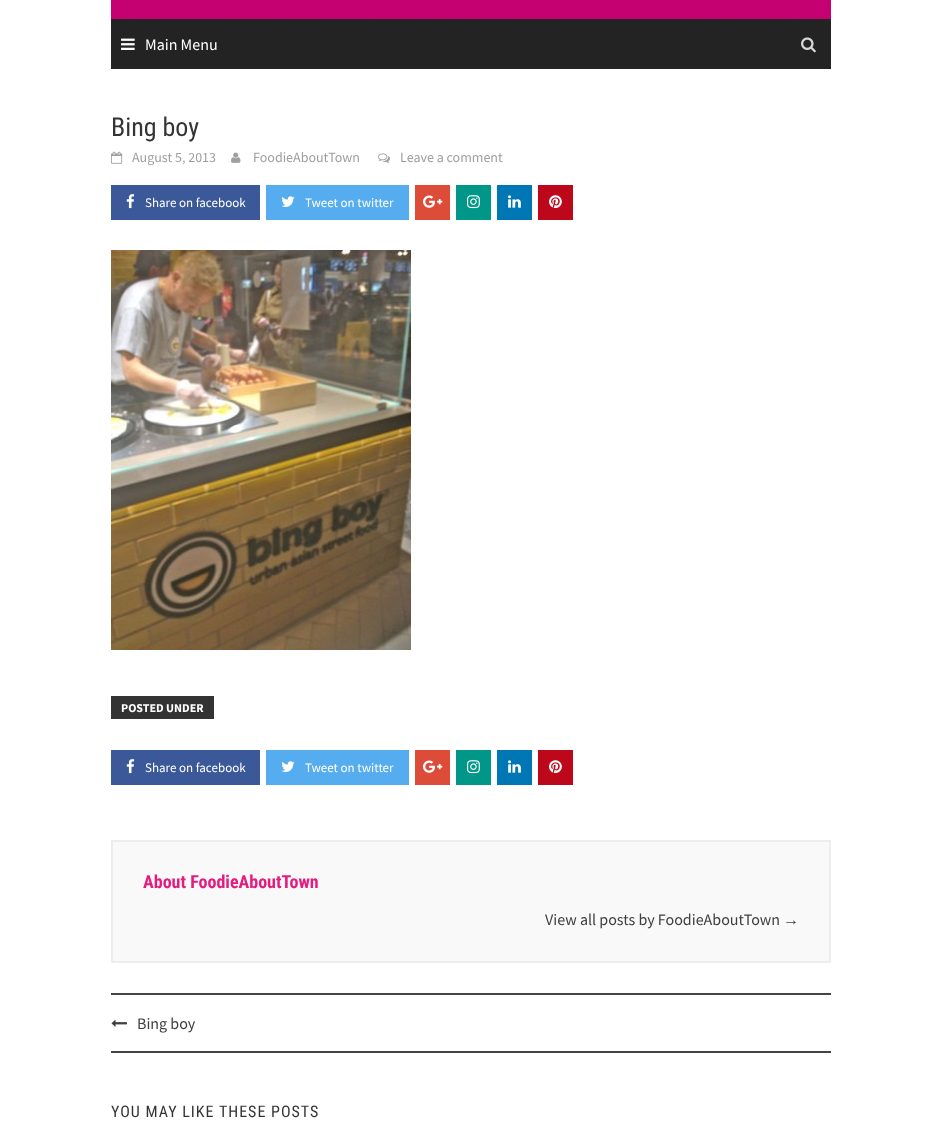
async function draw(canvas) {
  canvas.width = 942;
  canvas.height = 1138;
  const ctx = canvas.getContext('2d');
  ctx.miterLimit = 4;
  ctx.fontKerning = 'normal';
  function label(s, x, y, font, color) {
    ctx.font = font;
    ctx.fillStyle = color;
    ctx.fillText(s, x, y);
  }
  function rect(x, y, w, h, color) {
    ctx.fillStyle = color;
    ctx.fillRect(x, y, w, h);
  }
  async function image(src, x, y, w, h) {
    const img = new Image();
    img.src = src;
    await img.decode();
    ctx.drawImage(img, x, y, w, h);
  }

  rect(0, 0, 942, 1138, '#fff');
  await image('assets/img1.png', 111, 0, 720, 19);
  rect(111, 19, 720, 50, '#232323');
  await image('assets/img2.png', 121, 38, 14, 12);
  label('Main Menu', 145, 50, '16px Source Sans Pro', '#fff');
  await image('assets/img3.png', 801, 37, 15, 16);
  label('Bing boy', 111, 136, '26px Roboto Condensed', '#353434');
  await image('assets/img4.png', 111, 151, 12, 13);
  label('August 5, 2013', 132, 162, '14px Source Sans Pro', '#9f9f9f');
  await image('assets/img5.png', 231, 152, 10, 11);
  label('FoodieAboutTown', 253, 162, '14px Source Sans Pro', '#9f9f9f');
  await image('assets/img6.png', 378, 153, 12, 10);
  label('Leave a comment', 400, 162, '14px Source Sans Pro', '#9f9f9f');
  rect(111, 185, 149, 35, '#3b5999');
  await image('assets/img7.png', 126, 194, 9, 15);
  label('Share on facebook', 145, 207, '13px Source Sans Pro', '#fff');
  rect(266, 185, 143, 35, '#55acee');
  await image('assets/img8.png', 281, 196, 14, 11);
  label('Tweet on twitter', 305, 207, '13px Source Sans Pro', '#fff');
  rect(415, 185, 35, 35, '#dd4b39');
  await image('assets/img9.png', 423, 195, 20, 13);
  rect(456, 185, 35, 35, '#009688');
  await image('assets/img10.png', 467, 195, 13, 14);
  rect(497, 185, 35, 35, '#0077b5');
  await image('assets/img11.png', 508, 195, 13, 13);
  rect(538, 185, 35, 35, '#bd081c');
  await image('assets/img12.png', 549, 195, 13, 14);
  await image('assets/img13.png', 111, 250, 300, 400);
  rect(111, 696, 103, 23, '#333');
  label('POSTED UNDER', 121, 712, 'bold 12px Source Sans Pro', '#fff');
  rect(111, 750, 149, 35, '#3b5999');
  await image('assets/img7.png', 126, 759, 9, 15);
  label('Share on facebook', 145, 772, '13px Source Sans Pro', '#fff');
  rect(266, 750, 143, 35, '#55acee');
  await image('assets/img8.png', 281, 761, 14, 11);
  label('Tweet on twitter', 305, 772, '13px Source Sans Pro', '#fff');
  rect(415, 750, 35, 35, '#dd4b39');
  await image('assets/img9.png', 423, 760, 20, 13);
  rect(456, 750, 35, 35, '#009688');
  await image('assets/img10.png', 467, 760, 13, 14);
  rect(497, 750, 35, 35, '#0077b5');
  await image('assets/img11.png', 508, 760, 13, 13);
  rect(538, 750, 35, 35, '#bd081c');
  await image('assets/img12.png', 549, 760, 13, 14);
  ctx.fillStyle = '#f9f9f9';
  ctx.beginPath();
  ctx.rect(112, 841, 718, 121);
  ctx.fill();
  ctx.strokeStyle = '#ededed';
  ctx.lineWidth = 2;
  ctx.stroke();
  label('About FoodieAboutTown', 143, 888, 'bold 18px Roboto Condensed', '#e51b80');
  label('View all posts by FoodieAboutTown', 545, 925, '16px Source Sans Pro', '#404040');
  label('→', 783, 925, '16px Liberation Serif', '#404040');
  rect(111, 993, 720, 2, '#444');
  rect(111, 1051, 720, 2, '#444');
  await image('assets/img14.png', 111, 1019, 16, 8);
  label('Bing boy', 137, 1029, '16px Source Sans Pro', '#404040');
  ctx.letterSpacing = '1px';
  label('YOU MAY LIKE THESE POSTS', 111, 1117, '16px Roboto Condensed', '#353434');
}

draw(document.querySelector('canvas'));
